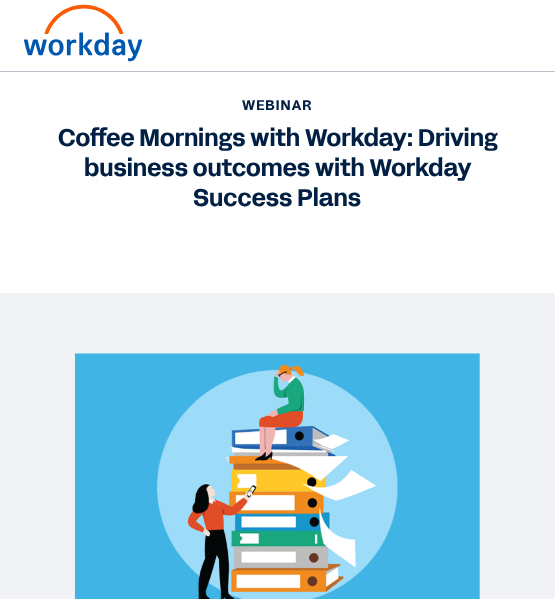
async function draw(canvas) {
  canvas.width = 555;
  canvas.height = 599;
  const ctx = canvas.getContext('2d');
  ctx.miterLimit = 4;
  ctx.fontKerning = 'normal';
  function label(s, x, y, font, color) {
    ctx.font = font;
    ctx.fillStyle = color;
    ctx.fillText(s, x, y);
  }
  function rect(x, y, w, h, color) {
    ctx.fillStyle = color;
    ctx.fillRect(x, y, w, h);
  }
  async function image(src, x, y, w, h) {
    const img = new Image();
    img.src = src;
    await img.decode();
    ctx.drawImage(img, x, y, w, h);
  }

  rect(0, 0, 555, 599, '#fff');
  rect(0, 71, 555, 1, '#b6c1cc');
  await image('assets/img1.png', 24, 4, 119, 58);
  ctx.letterSpacing = '1px';
  label('WEBINAR', 242, 110, 'bold 14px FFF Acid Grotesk', '#022043');
  ctx.letterSpacing = '0px';
  label('Coffee Mornings with Workday: Driving', 58, 146, 'bold 24px FFF Acid Grotesk', '#022043');
  label('business outcomes with Workday', 84, 176, 'bold 24px FFF Acid Grotesk', '#022043');
  label('Success Plans', 193, 206, 'bold 24px FFF Acid Grotesk', '#022043');
  rect(0, 293, 555, 306, '#f1f3f6');
  await image('assets/img2.png', 74, 353, 406, 246);
}

draw(document.querySelector('canvas'));
